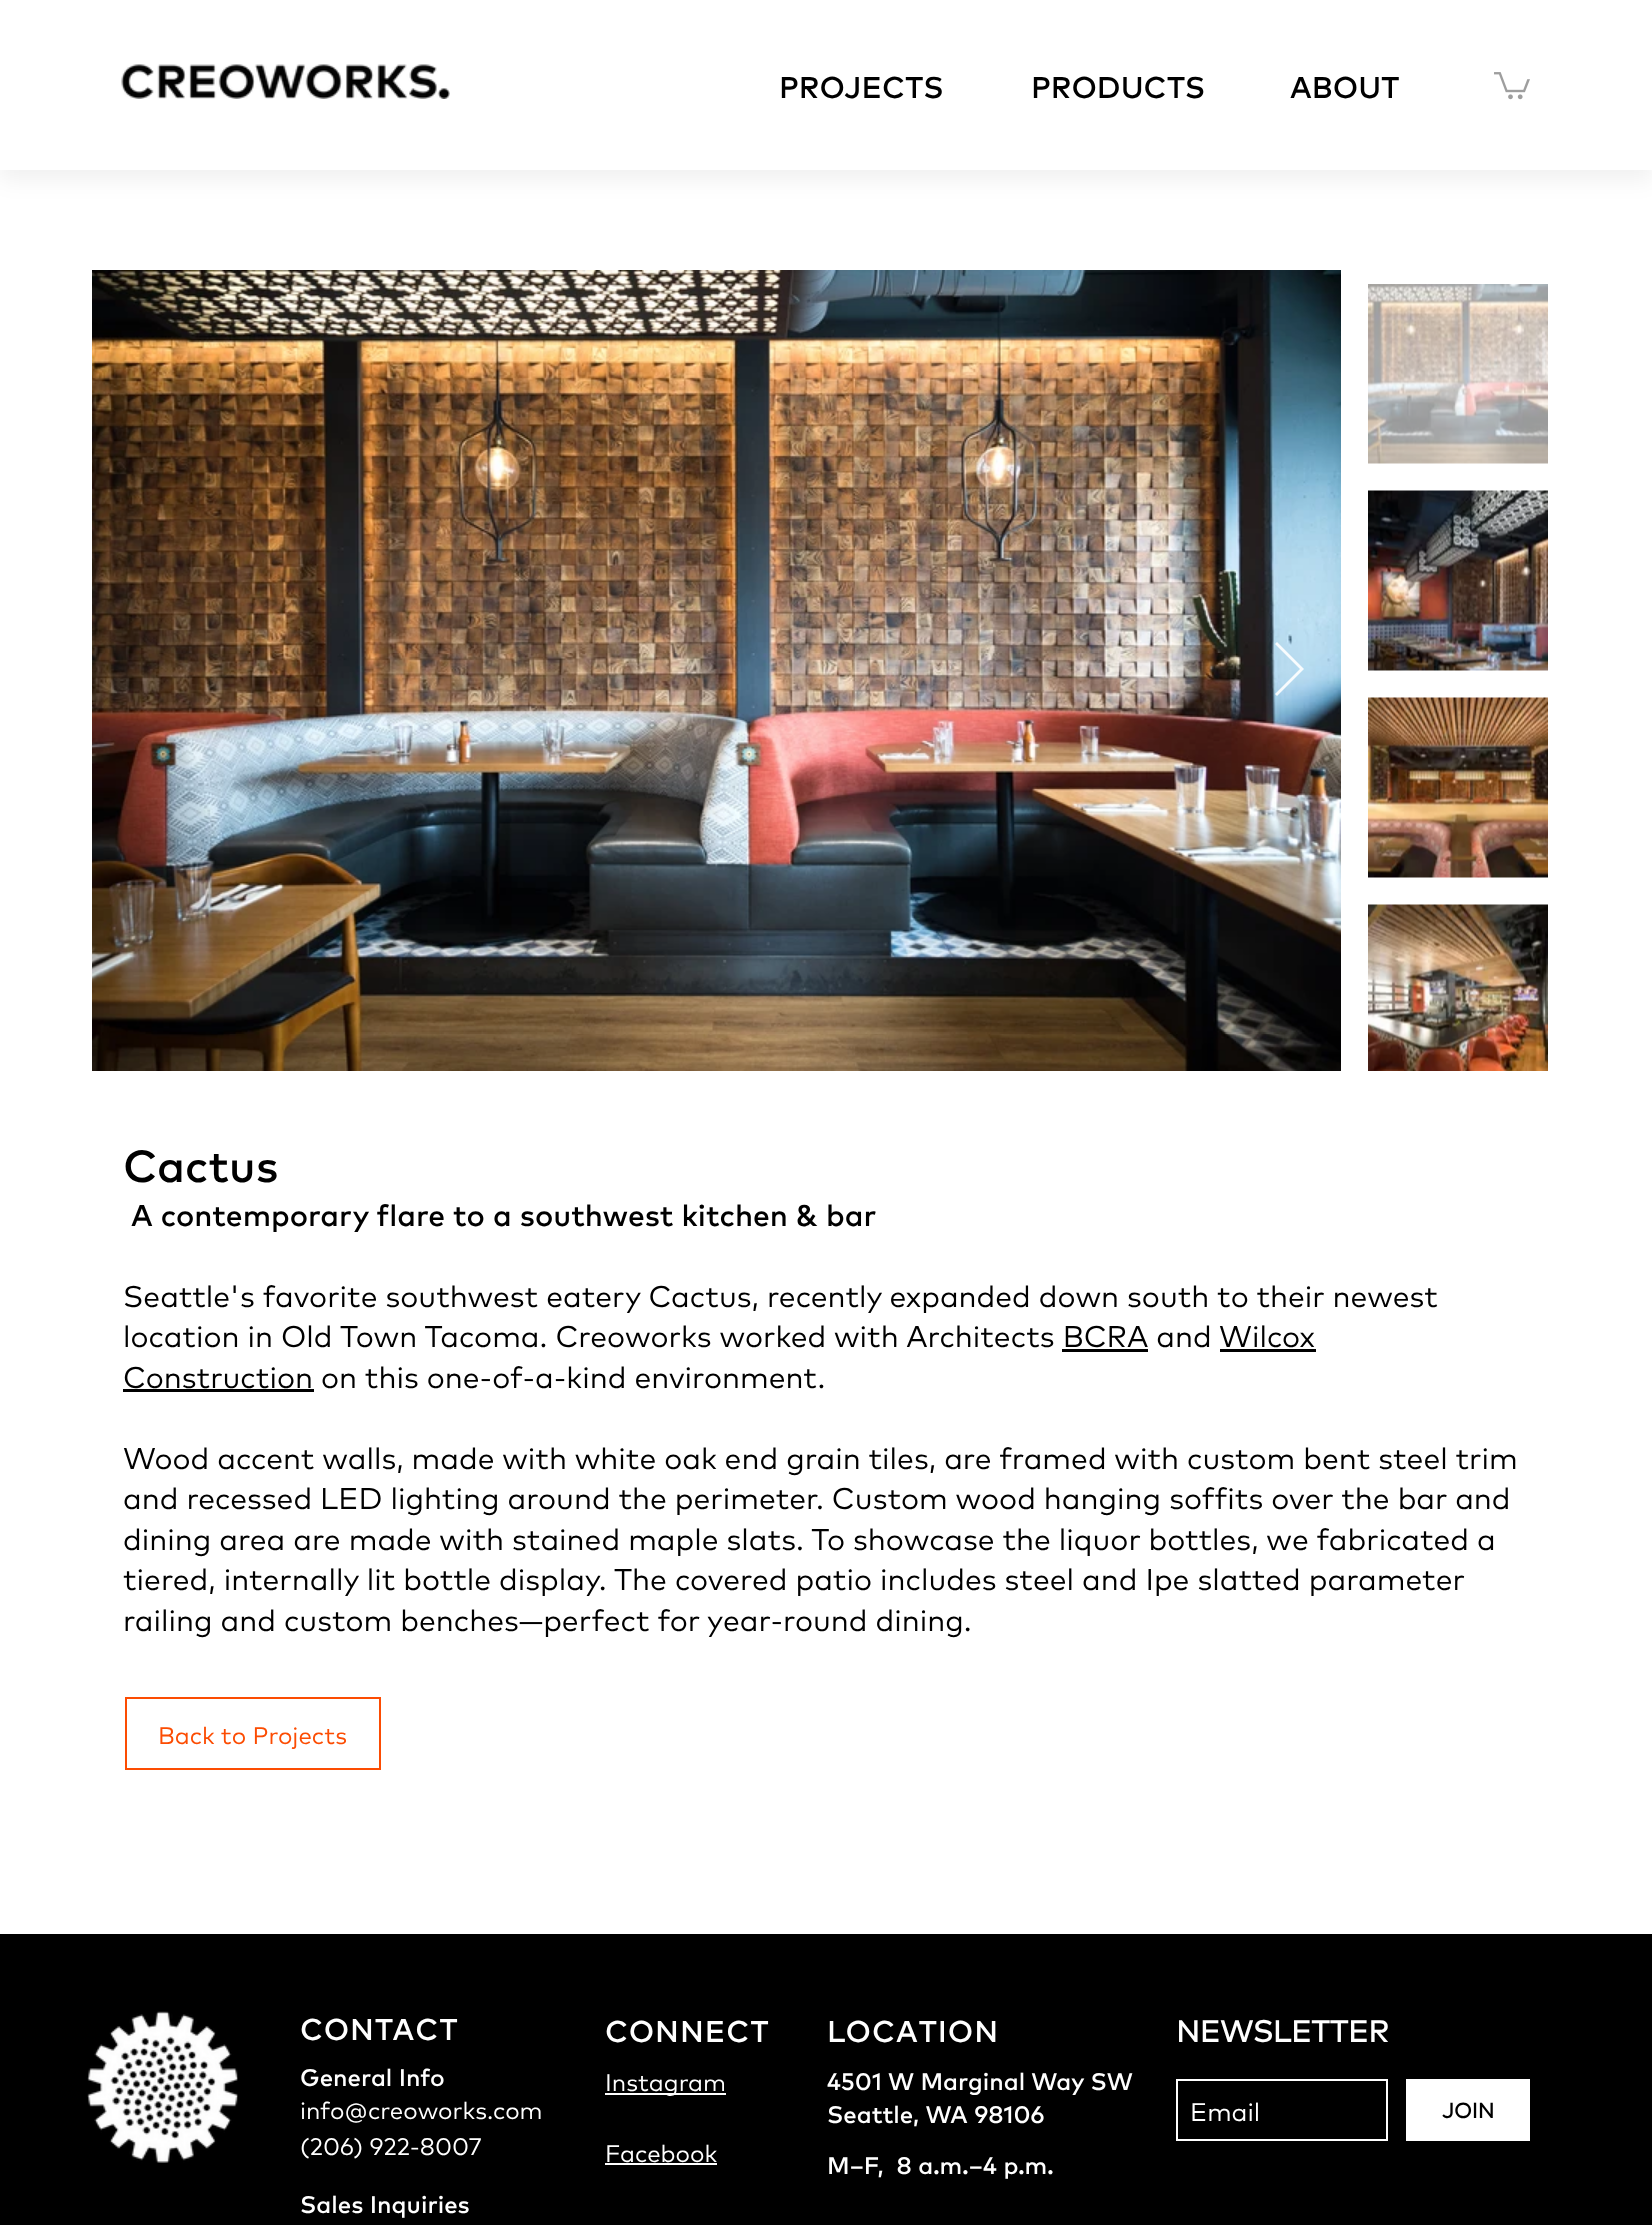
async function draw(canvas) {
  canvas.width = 1652;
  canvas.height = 2225;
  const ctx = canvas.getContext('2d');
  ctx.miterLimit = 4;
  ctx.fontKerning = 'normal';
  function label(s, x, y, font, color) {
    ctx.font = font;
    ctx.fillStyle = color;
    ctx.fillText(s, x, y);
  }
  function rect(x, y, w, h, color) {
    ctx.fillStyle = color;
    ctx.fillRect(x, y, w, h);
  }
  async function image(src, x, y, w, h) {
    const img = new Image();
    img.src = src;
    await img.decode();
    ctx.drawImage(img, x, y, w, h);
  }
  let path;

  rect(0, 0, 1652, 2225, '#fff');
  ctx.fillStyle = '#0000000f';
  ctx.filter = 'blur(11px)';
  ctx.beginPath();
  ctx.rect(0, 11, 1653, 169);
  ctx.fill();
  ctx.filter = 'none';
  rect(0, 0, 1652, 170, '#fff');
  await image('assets/img1.png', 121, 64, 329, 35);
  label('PROJECTS', 779, 98, '500 30px "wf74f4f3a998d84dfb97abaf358"', '#000');
  label('PRODUCTS', 1031, 98, '500 30px "wf74f4f3a998d84dfb97abaf358"', '#000');
  label('ABOUT', 1290, 98, '500 30px "wf74f4f3a998d84dfb97abaf358"', '#000');
  await image('assets/img2.png', 1494, 72, 36, 28);
  await image('assets/img3.png', 92, 270, 1249, 801);
  ctx.fillStyle = '#ffffffe6';
  path = new Path2D('M1275 644L1277 642L1304 669L1277 696L1275 694L1300 669Z');
  ctx.fill(path);
  await image('assets/img4.png', 1368, 284, 180, 180);
  await image('assets/img5.png', 1368, 490, 180, 181);
  await image('assets/img6.png', 1368, 697, 180, 181);
  await image('assets/img7.png', 1368, 904, 180, 167);
  label('Cactus', 123, 1182, '500 45px "wf74f4f3a998d84dfb97abaf358"', '#000');
  label('A contemporary flare to a southwest kitchen & bar', 131, 1226, '500 30px "wf74f4f3a998d84dfb97abaf358"', '#000');
  label('Seattle\'s favorite southwest eatery Cactus, recently expanded down south to their newest', 123, 1307, '30px "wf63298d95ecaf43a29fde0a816"', '#000');
  label('location in Old Town Tacoma. Creoworks worked with Architects BCRA and', 123, 1347, '30px "wf63298d95ecaf43a29fde0a816"', '#000');
  label('Wilcox', 1219, 1347, '30px "wf63298d95ecaf43a29fde0a816"', '#000');
  rect(1220, 1349, 96, 3, '#000');
  rect(1062, 1349, 86, 3, '#000');
  label('Construction on this one-of-a-kind environment.', 123, 1388, '30px "wf63298d95ecaf43a29fde0a816"', '#000');
  rect(123, 1389, 191, 3, '#000');
  label('Wood accent walls, made with white oak end grain tiles, are framed with custom bent steel trim', 123, 1469, '30px "wf63298d95ecaf43a29fde0a816"', '#000');
  label('and recessed LED lighting around the perimeter. Custom wood hanging soffits over the bar and', 123, 1509, '30px "wf63298d95ecaf43a29fde0a816"', '#000');
  label('dining area are made with stained maple slats. To showcase the liquor bottles, we fabricated a', 123, 1550, '30px "wf63298d95ecaf43a29fde0a816"', '#000');
  label('tiered, internally lit bottle display. The covered patio includes steel and Ipe slatted parameter', 123, 1590, '30px "wf63298d95ecaf43a29fde0a816"', '#000');
  label('railing and custom benches—perfect for year-round dining.', 123, 1631, '30px "wf63298d95ecaf43a29fde0a816"', '#000');
  ctx.strokeStyle = '#fc4c02';
  ctx.lineWidth = 2;
  ctx.strokeRect(126, 1698, 254, 71);
  label('Back to Projects', 158, 1744, '24px "wf63298d95ecaf43a29fde0a816"', '#fc4c02');
  rect(0, 1934, 1652, 291, '#000');
  await image('assets/img8.png', 87, 2011, 151, 152);
  ctx.letterSpacing = '1px';
  label('CONTACT', 300, 2040, '500 30px "wf74f4f3a998d84dfb97abaf358"', '#fff');
  ctx.letterSpacing = '0px';
  label('General Info', 300, 2086, '500 24px "wf74f4f3a998d84dfb97abaf358"', '#fff');
  label('info@creoworks.com', 300, 2119, '24px "wf63298d95ecaf43a29fde0a816"', '#fff');
  label('(206) 922-8007', 300, 2155, '24px "wf63298d95ecaf43a29fde0a816"', '#fff');
  label('Sales Inquiries', 300, 2213, '500 24px "wf74f4f3a998d84dfb97abaf358"', '#fff');
  ctx.letterSpacing = '1px';
  label('CONNECT', 605, 2042, '500 30px "wf74f4f3a998d84dfb97abaf358"', '#fff');
  label('LOCATION', 827, 2042, '500 30px "wf74f4f3a998d84dfb97abaf358"', '#fff');
  ctx.letterSpacing = '0px';
  label('4501 W Marginal Way SW', 827, 2090, '500 24px "wf74f4f3a998d84dfb97abaf358"', '#fff');
  label('Seattle, WA 98106', 827, 2123, '500 24px "wf74f4f3a998d84dfb97abaf358"', '#fff');
  label('M–F,  8 a.m.–4 p.m.', 827, 2174, '500 24px "wf74f4f3a998d84dfb97abaf358"', '#fff');
  label('NEWSLETTER', 1176, 2042, 'bold 30px "wf63298d95ecaf43a29fde0a816"', '#fff');
  ctx.strokeStyle = '#fff';
  ctx.strokeRect(1177, 2080, 210, 60);
  label('Email', 1190, 2121, '25.5px "wf63298d95ecaf43a29fde0a816"', '#fff');
  rect(1406, 2079, 124, 62, '#fff');
  label('JOIN', 1442, 2118, 'bold 21px "wf63298d95ecaf43a29fde0a816"', '#000');
  rect(605, 2093, 121, 2, '#fff');
  label('Instagram', 605, 2091, '24px "wf63298d95ecaf43a29fde0a816"', '#fff');
  label('Facebook', 605, 2162, '24px "wf63298d95ecaf43a29fde0a816"', '#fff');
  rect(605, 2163, 112, 2, '#fff');
}

draw(document.querySelector('canvas'));
